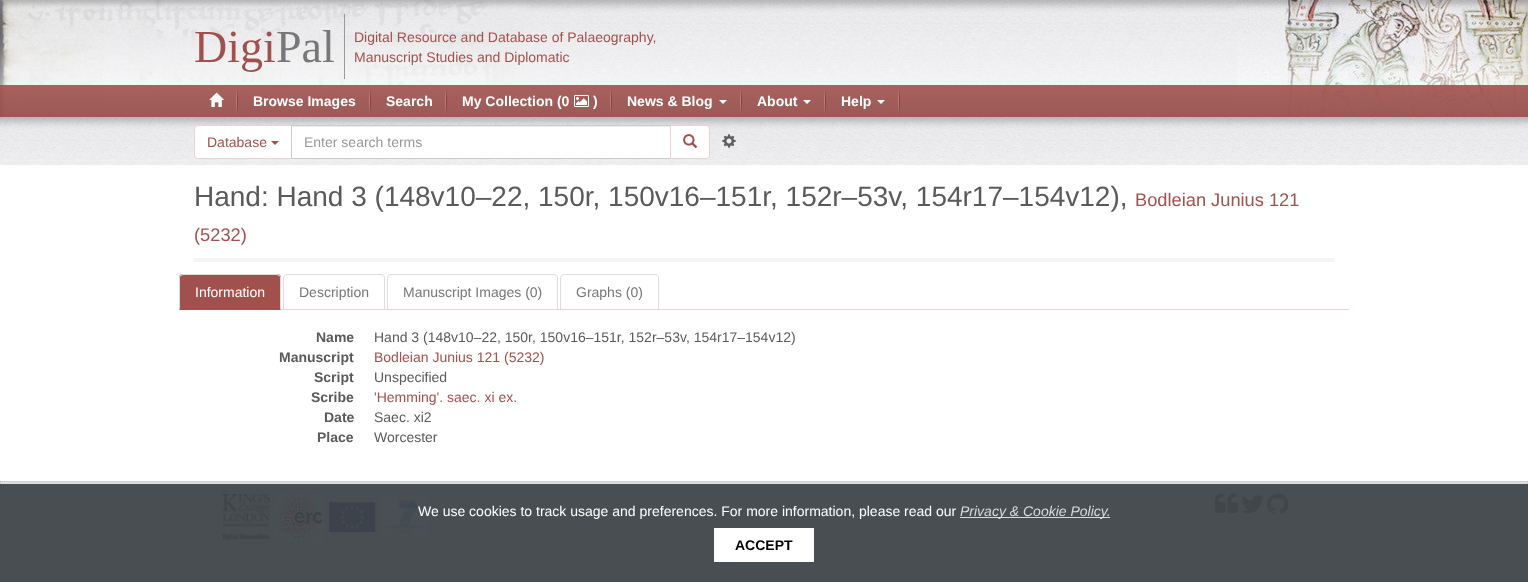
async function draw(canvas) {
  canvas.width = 1528;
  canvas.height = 582;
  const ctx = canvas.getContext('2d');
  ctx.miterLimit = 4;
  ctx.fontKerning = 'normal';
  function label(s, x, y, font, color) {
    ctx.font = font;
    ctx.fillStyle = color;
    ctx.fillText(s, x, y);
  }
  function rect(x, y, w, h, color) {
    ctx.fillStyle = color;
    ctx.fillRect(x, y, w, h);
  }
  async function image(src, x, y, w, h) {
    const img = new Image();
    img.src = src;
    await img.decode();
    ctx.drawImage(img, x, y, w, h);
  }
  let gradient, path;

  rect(0, 0, 1528, 582, '#fff');
  await image('assets/img1.png', 511, 0, 726, 117);
  await image('assets/img2.png', 0, 0, 536, 117);
  await image('assets/img3.png', 1237, 0, 291, 117);
  label('Digi', 194, 62, '46px Liberation Serif', '#a1514d');
  label('Pal', 276, 62, '46px Liberation Serif', '#777');
  rect(344, 14, 1, 65, '#999');
  label('Digital Resource and Database of Palaeography,', 354, 42, '14px Liberation Sans', '#a1514d');
  label('Manuscript Studies and Diplomatic', 354, 62, '14px Liberation Sans', '#a1514d');
  gradient = ctx.createLinearGradient(764, 85, 764, 117);
  gradient.addColorStop(0, '#a1514de6');
  gradient.addColorStop(1, '#904845e6');
  ctx.fillStyle = gradient;
  ctx.fillRect(0, 85, 1528, 32);
  await image('assets/img4.png', 236, 89, 2, 25);
  await image('assets/img5.png', 209, 92, 15, 15);
  await image('assets/img6.png', 369, 89, 2, 25);
  label('Browse Images', 253, 106, 'bold 14px Liberation Sans', '#fff');
  await image('assets/img7.png', 445, 89, 2, 25);
  label('Search', 386, 106, 'bold 14px Liberation Sans', '#fff');
  await image('assets/img8.png', 610, 89, 2, 25);
  label('My Collection (0', 462, 106, 'bold 14px Liberation Sans', '#fff');
  await image('assets/img9.png', 574, 95, 15, 12);
  label(')', 593, 106, 'bold 14px Liberation Sans', '#fff');
  await image('assets/img10.png', 740, 89, 2, 25);
  label('News & Blog', 627, 106, 'bold 14px Liberation Sans', '#fff');
  path = new Path2D('M719 100H727L723 104Z');
  ctx.fill(path);
  await image('assets/img11.png', 824, 89, 2, 25);
  label('About', 757, 106, 'bold 14px Liberation Sans', '#fff');
  path = new Path2D('M803 100H811L807 104Z');
  ctx.fill(path);
  await image('assets/img8.png', 898, 89, 2, 25);
  label('Help', 841, 106, 'bold 14px Liberation Sans', '#fff');
  path = new Path2D('M877 100H885L881 104Z');
  ctx.fill(path);
  await image('assets/img12.png', 0, 117, 1528, 48);
  ctx.beginPath();
  ctx.roundRect(194.5, 125.5, 97, 33, [3.5, 0, 0, 3.5]);
  ctx.fill();
  ctx.strokeStyle = '#e9d2d1';
  ctx.stroke();
  label('Database', 207, 147, '14px Liberation Sans', '#a1514d');
  path = new Path2D('M271 141H279L275 145Z');
  ctx.fill(path);
  rect(292, 127, 378, 31, '#fff');
  rect(292, 126, 378, 1, '#ececec');
  ctx.strokeStyle = '#ccc';
  ctx.strokeRect(291.5, 125.5, 379, 33);
  label('Enter search terms', 304, 147, '14px Liberation Sans', '#999');
  ctx.fillStyle = '#fff';
  ctx.beginPath();
  ctx.roundRect(670.5, 125.5, 39, 33, [0, 3.5, 3.5, 0]);
  ctx.fill();
  ctx.strokeStyle = '#e9d2d1';
  ctx.stroke();
  await image('assets/img13.png', 683, 134, 15, 14);
  await image('assets/img14.png', 722, 134, 14, 14);
  rect(194, 258, 1140, 4, '#f5f5f5');
  label('Hand: Hand 3 (148v10–22, 150r, 150v16–151r, 152r–53v, 154r17–154v12),', 194, 206, '28px Liberation Sans', '#5a5a5a');
  label('Bodleian Junius 121', 1135, 206, '18.25px Liberation Sans', '#a1514d');
  label('(5232)', 194, 241, '18.25px Liberation Sans', '#a1514d');
  rect(281, 309, 1068, 1, '#e9d2d1');
  ctx.fillStyle = '#a1514d';
  ctx.beginPath();
  ctx.roundRect(179, 274, 102, 36, [4, 4, 0, 0]);
  ctx.fill();
  ctx.fillStyle = '#ddd';
  path = new Path2D('M183 274L180 275L181 276L183 275H277L279 276L280 275L277 274Z');
  ctx.fill(path);
  path = new Path2D('M281 310V278C281 277 280.5 276 280 275L279 276C280 276 280 277 280 278V309Z');
  ctx.fill(path);
  path = new Path2D('M179 310L180 309V278C180 277 180 276 181 276L180 275C179.5 276 179 277 179 278Z');
  ctx.fill(path);
  label('Information', 195, 297, '14px Liberation Sans', '#fff');
  ctx.fillStyle = '#ddd';
  path = new Path2D('M287 274H381C383 274 385 276 385 278V309H283V278C283 276 285 274 287 274ZM287 275H381C383 275 384 276 384 278V309H284V278C284 276 285 275 287 275Z');
  ctx.fill(path, 'evenodd');
  label('Description', 299, 297, '14px Liberation Sans', '#777');
  ctx.fillStyle = '#ddd';
  path = new Path2D('M391 274H554C556 274 558 276 558 278V309H387V278C387 276 389 274 391 274ZM391 275H554C556 275 557 276 557 278V309H388V278C388 276 389 275 391 275Z');
  ctx.fill(path, 'evenodd');
  label('Manuscript Images (0)', 403, 297, '14px Liberation Sans', '#777');
  ctx.fillStyle = '#ddd';
  path = new Path2D('M564 274H655C657 274 659 276 659 278V309H560V278C560 276 562 274 564 274ZM564 275H655C657 275 658 276 658 278V309H561V278C561 276 562 275 564 275Z');
  ctx.fill(path, 'evenodd');
  label('Graphs (0)', 576, 297, '14px Liberation Sans', '#777');
  label('Name', 316, 342, 'bold 14px Liberation Sans', '#5a5a5a');
  label('Hand 3 (148v10–22, 150r, 150v16–151r, 152r–53v, 154r17–154v12)', 374, 342, '14px Liberation Sans', '#5a5a5a');
  label('Manuscript', 279, 362, 'bold 14px Liberation Sans', '#5a5a5a');
  label('Bodleian Junius 121 (5232)', 374, 362, '14px Liberation Sans', '#a1514d');
  label('Script', 314, 382, 'bold 14px Liberation Sans', '#5a5a5a');
  label('Unspecified', 374, 382, '14px Liberation Sans', '#5a5a5a');
  label('Scribe', 311, 402, 'bold 14px Liberation Sans', '#5a5a5a');
  label('\'Hemming\'. saec. xi ex.', 374, 402, '14px Liberation Sans', '#a1514d');
  label('Date', 324, 422, 'bold 14px Liberation Sans', '#5a5a5a');
  label('Saec. xi2', 374, 422, '14px Liberation Sans', '#5a5a5a');
  label('Place', 317, 442, 'bold 14px Liberation Sans', '#5a5a5a');
  label('Worcester', 374, 442, '14px Liberation Sans', '#5a5a5a');
  rect(0, 481, 1528, 101, '#ddd');
  path = new Path2D('M0 481.5H1528');
  ctx.strokeStyle = '#c7c7c7';
  ctx.setLineDash([1, 1]);
  ctx.stroke(path);
  path = new Path2D('M1527.5 481V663');
  ctx.stroke(path);
  path = new Path2D('M.5 481V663');
  ctx.strokeStyle = '#0000001a';
  ctx.stroke(path);
  await image('assets/img15.png', 222, 494, 48, 46);
  await image('assets/img16.png', 275, 493, 48, 49);
  await image('assets/img17.png', 328, 501, 48, 32);
  await image('assets/img18.png', 381, 497, 48, 40);
  await image('assets/img19.png', 1215, 493, 24, 20);
  await image('assets/img20.png', 1241, 495, 23, 18);
  await image('assets/img21.png', 1267, 493, 22, 22);
  rect(0, 484, 1528, 98, '#3f464af2');
  label('We use cookies to track usage and preferences. For more information, please read our', 418, 516, '14px Liberation Sans', '#fff');
  rect(960, 517, 150, 1, '#dadcdc');
  label('Privacy & Cookie Policy.', 960, 516, 'italic 14px Liberation Sans', '#dadcdc');
  rect(714, 528, 100, 34, '#fff');
  label('ACCEPT', 735, 550, 'bold 14px Liberation Sans', '#000');
}

draw(document.querySelector('canvas'));
